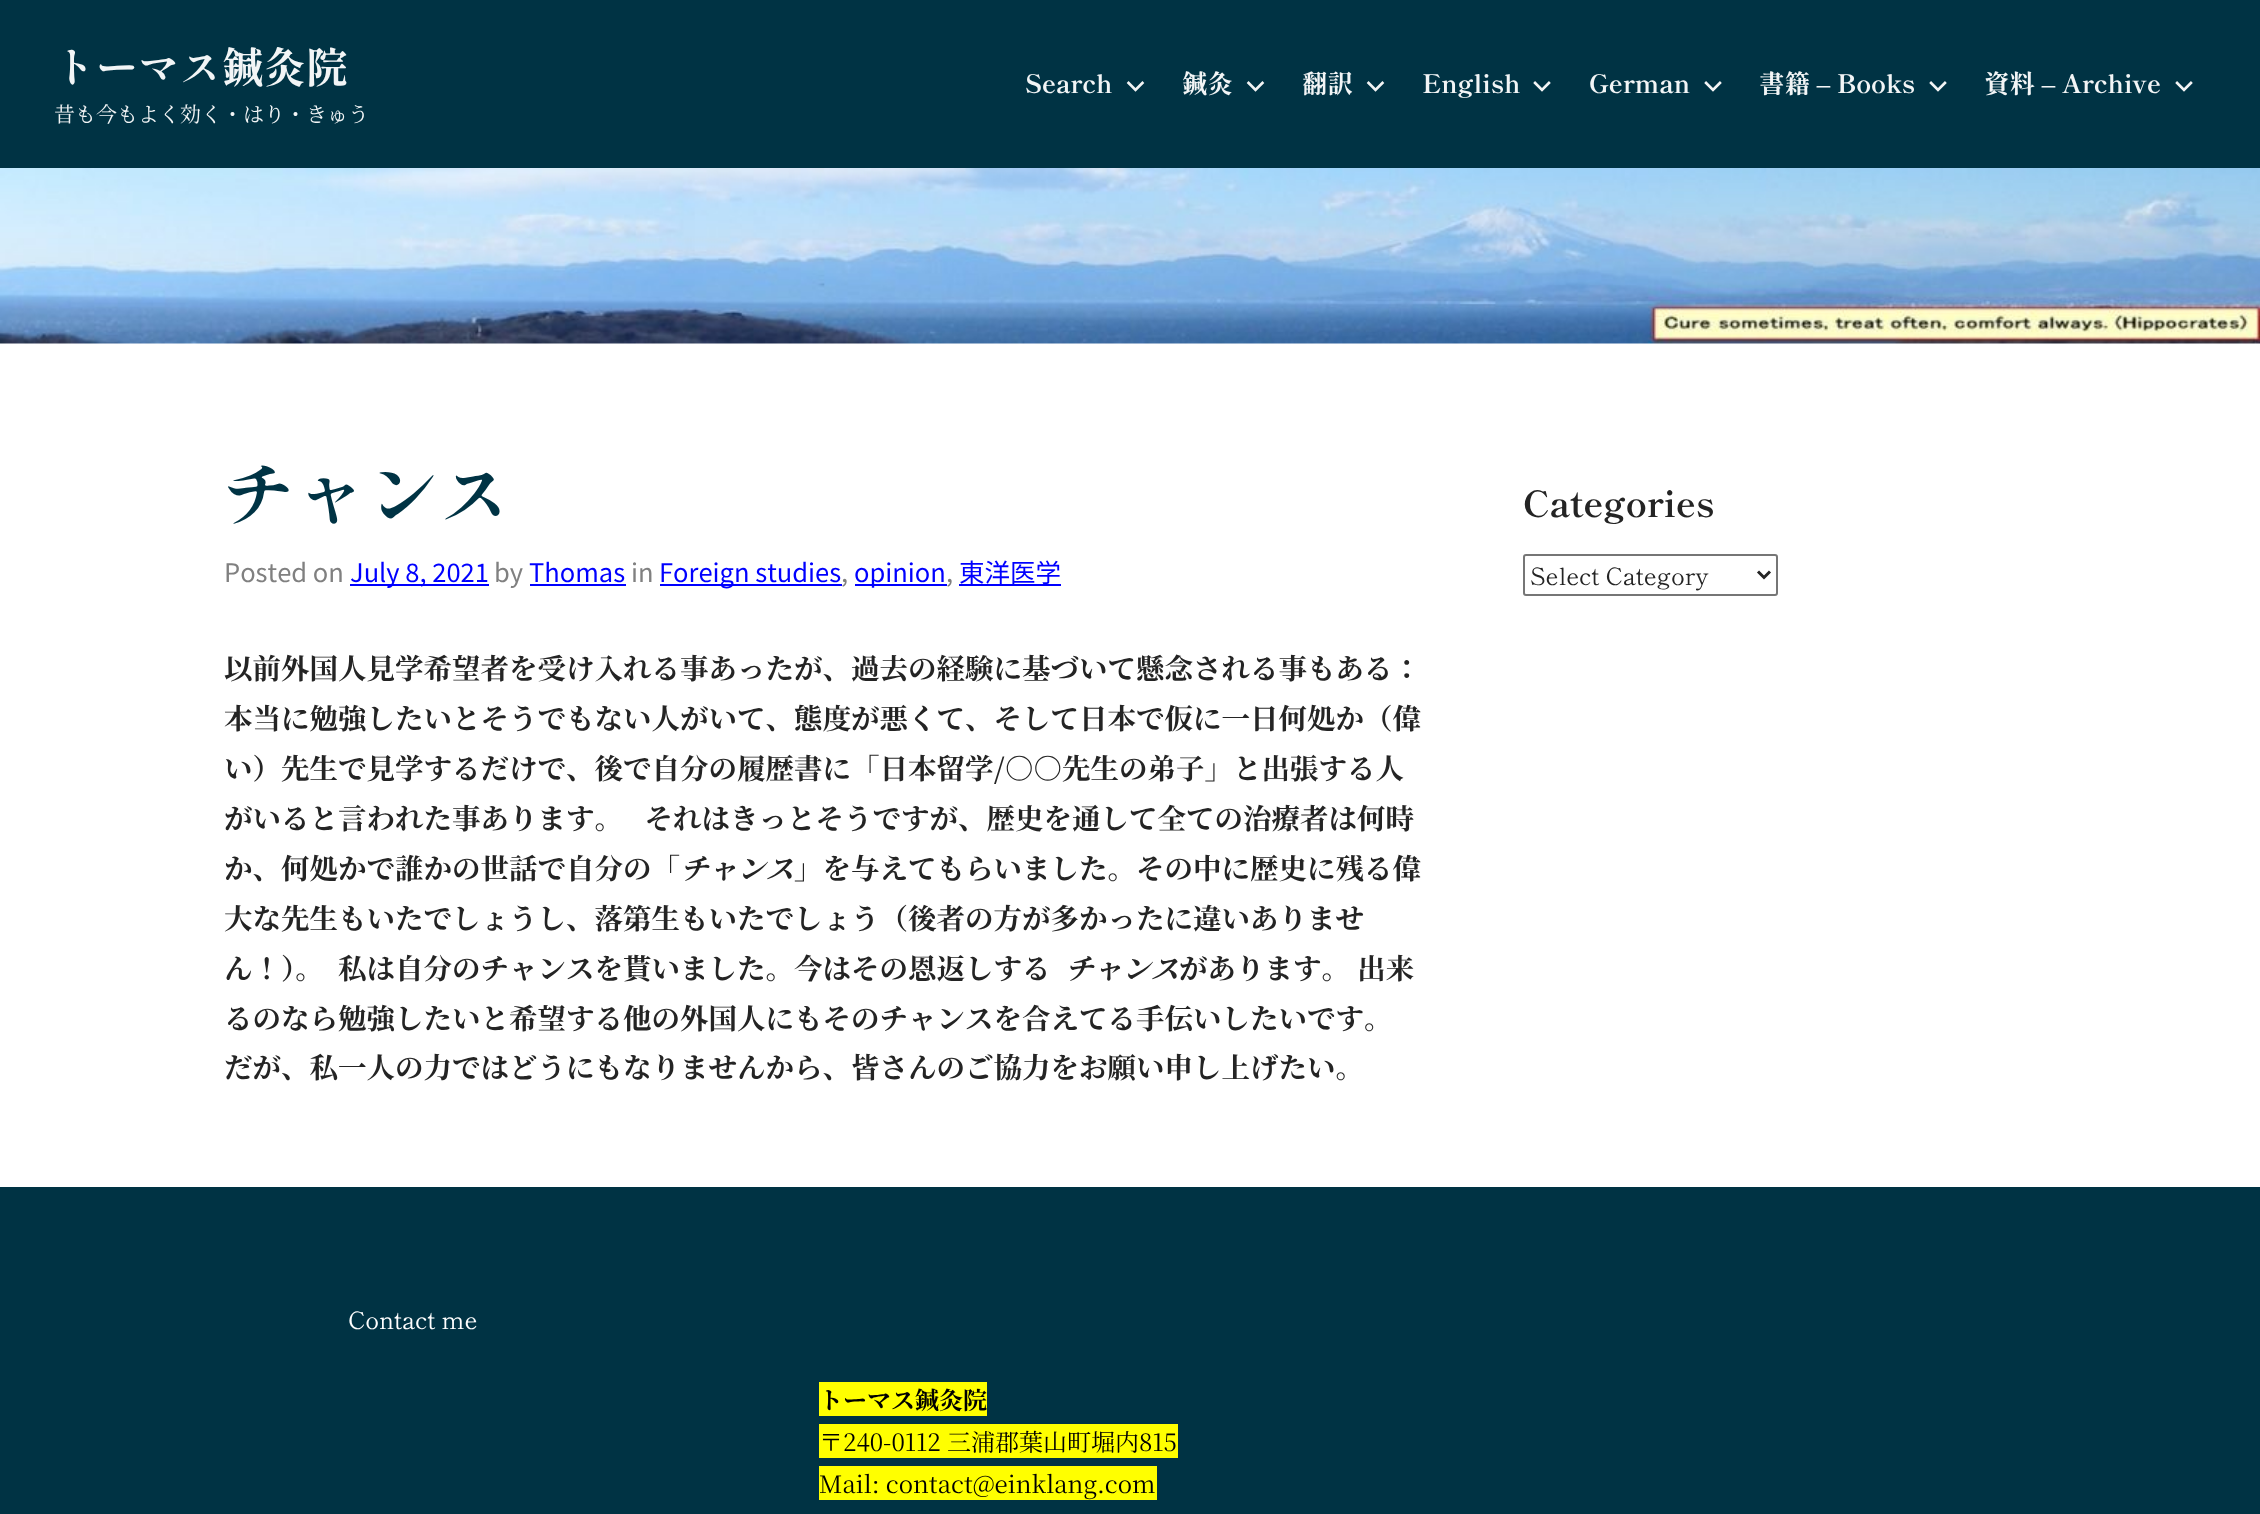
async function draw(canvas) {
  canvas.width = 2260;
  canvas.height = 1514;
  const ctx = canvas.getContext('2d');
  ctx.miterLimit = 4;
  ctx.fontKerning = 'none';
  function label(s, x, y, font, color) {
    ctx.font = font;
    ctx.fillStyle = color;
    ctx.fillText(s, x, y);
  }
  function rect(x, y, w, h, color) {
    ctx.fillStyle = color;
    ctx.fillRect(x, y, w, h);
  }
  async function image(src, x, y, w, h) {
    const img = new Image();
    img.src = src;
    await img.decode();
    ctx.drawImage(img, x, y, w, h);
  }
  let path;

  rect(0, 0, 2260, 1514, '#fff');
  rect(0, 0, 2260, 168, '#034');
  label('トーマス鍼灸院', 54, 83, 'bold 42px "Shippori Mincho B1"', '#f2f5f6');
  label('昔も今もよく効く・はり・きゅう', 54, 122, '21px Noto Serif JP', '#f2f5f6');
  label('Search', 1025, 93, 'bold 25.5px "Shippori Mincho B1"', '#f2f5f6');
  await image('assets/img1.png', 1126, 81, 19, 11);
  label('鍼灸', 1182, 93, 'bold 25.5px "Shippori Mincho B1"', '#f2f5f6');
  await image('assets/img1.png', 1246, 81, 19, 11);
  label('翻訳', 1302, 93, 'bold 25.5px "Shippori Mincho B1"', '#f2f5f6');
  await image('assets/img1.png', 1366, 81, 19, 11);
  label('English', 1422, 93, 'bold 25.5px "Shippori Mincho B1"', '#f2f5f6');
  await image('assets/img2.png', 1533, 81, 18, 11);
  label('German', 1589, 93, 'bold 25.5px "Shippori Mincho B1"', '#f2f5f6');
  await image('assets/img2.png', 1704, 81, 18, 11);
  label('書籍 – Books', 1759, 93, 'bold 25.5px "Shippori Mincho B1"', '#f2f5f6');
  await image('assets/img2.png', 1929, 81, 18, 11);
  label('資料 – Archive', 1984, 93, 'bold 25.5px "Shippori Mincho B1"', '#f2f5f6');
  await image('assets/img2.png', 2175, 81, 18, 11);
  await image('assets/img3.png', 0, 168, 2260, 176);
  label('チャンス', 224, 521, 'bold 72px "Shippori Mincho B1"', '#034');
  label('Posted on', 224, 582, '25.5px Noto Sans JP', '#808080');
  rect(350, 584, 139, 2, '#00f');
  label('July 8, 2021', 350, 582, '25.5px Noto Sans JP', '#00f');
  label('by', 494, 582, '25.5px Noto Sans JP', '#808080');
  label('Thomas', 529, 582, '25.5px Noto Sans JP', '#00f');
  rect(530, 584, 96, 2, '#00f');
  label('in', 631, 582, '25.5px Noto Sans JP', '#808080');
  rect(660, 584, 182, 2, '#00f');
  label('Foreign studies', 659, 582, '25.5px Noto Sans JP', '#00f');
  label(',', 841, 582, '25.5px Noto Sans JP', '#808080');
  rect(855, 584, 92, 2, '#00f');
  label('opinion', 854, 582, '25.5px Noto Sans JP', '#00f');
  label(',', 946, 582, '25.5px Noto Sans JP', '#808080');
  rect(959, 584, 102, 2, '#00f');
  label('東洋医学', 959, 582, '25.5px Noto Sans JP', '#00f');
  label('以前外国人見学希望者を受け入れる事あったが、過去の経験に基づいて懸念される事もある：', 224, 679, 'bold 28.5px Noto Serif JP', '#242424');
  label('本当に勉強したいとそうでもない人がいて、態度が悪くて、そして日本で仮に一日何処か（偉', 224, 729, 'bold 28.5px Noto Serif JP', '#242424');
  label('い）先生で見学するだけで、後で自分の履歴書に「日本留学/○○先生の弟子」と出張する人', 224, 779, 'bold 28.5px Noto Serif JP', '#242424');
  label('がいると言われた事あります。   それはきっとそうですが、歴史を通して全ての治療者は何時', 224, 829, 'bold 28.5px Noto Serif JP', '#242424');
  label('か、何処かで誰かの世話で自分の「', 224, 879, 'bold 28.5px Noto Serif JP', '#242424');
  label('チャンス', 680, 879, 'italic bold 28.5px Noto Serif JP', '#242424');
  label('」を与えてもらいました。その中に歴史に残る偉', 794, 879, 'bold 28.5px Noto Serif JP', '#242424');
  label('大な先生もいたでしょうし、落第生もいたでしょう（後者の方が多かったに違いありませ', 224, 929, 'bold 28.5px Noto Serif JP', '#242424');
  label('ん！）。  私は自分のチャンスを貰いました。今はその恩返しする', 224, 979, 'bold 28.5px Noto Serif JP', '#242424');
  label('チャンス', 1065, 979, 'italic bold 28.5px Noto Serif JP', '#242424');
  label('があります。 出来', 1179, 979, 'bold 28.5px Noto Serif JP', '#242424');
  label('るのなら勉強したいと希望する他の外国人にもそのチャンスを合えてる手伝いしたいです。', 224, 1029, 'bold 28.5px Noto Serif JP', '#242424');
  label('だが、私一人の力ではどうにもなりませんから、皆さんのご協力をお願い申し上げたい。', 224, 1078, 'bold 28.5px Noto Serif JP', '#242424');
  label('Categories', 1523, 517, 'bold 36px "Shippori Mincho B1"', '#242424');
  ctx.beginPath();
  ctx.roundRect(1524, 555, 253, 40, 2);
  ctx.strokeStyle = '#767676';
  ctx.lineWidth = 2;
  ctx.stroke();
  path = new Path2D('M1758 571.5L1764 577.5L1770 571.5');
  ctx.strokeStyle = '#242424';
  ctx.lineWidth = 3;
  ctx.stroke(path);
  label('Select Category', 1530, 585, '24px "Shippori Mincho B1"', '#242424');
  rect(0, 1187, 2260, 327, '#034');
  label('Contact me', 348, 1329, '24px "Shippori Mincho B1"', '#fff');
  rect(819, 1382, 168, 34, '#ff0');
  label('トーマス鍼灸院', 819, 1409, 'bold 24px Noto Serif JP', '#000');
  rect(819, 1424, 359, 34, '#ff0');
  label('〒240-0112 三浦郡葉山町堀内815', 819, 1451, '24px Noto Serif JP', '#000');
  rect(819, 1466, 338, 34, '#ff0');
  label('Mail: contact@einklang.com', 819, 1493, '24px Noto Serif JP', '#000');
}

draw(document.querySelector('canvas'));
